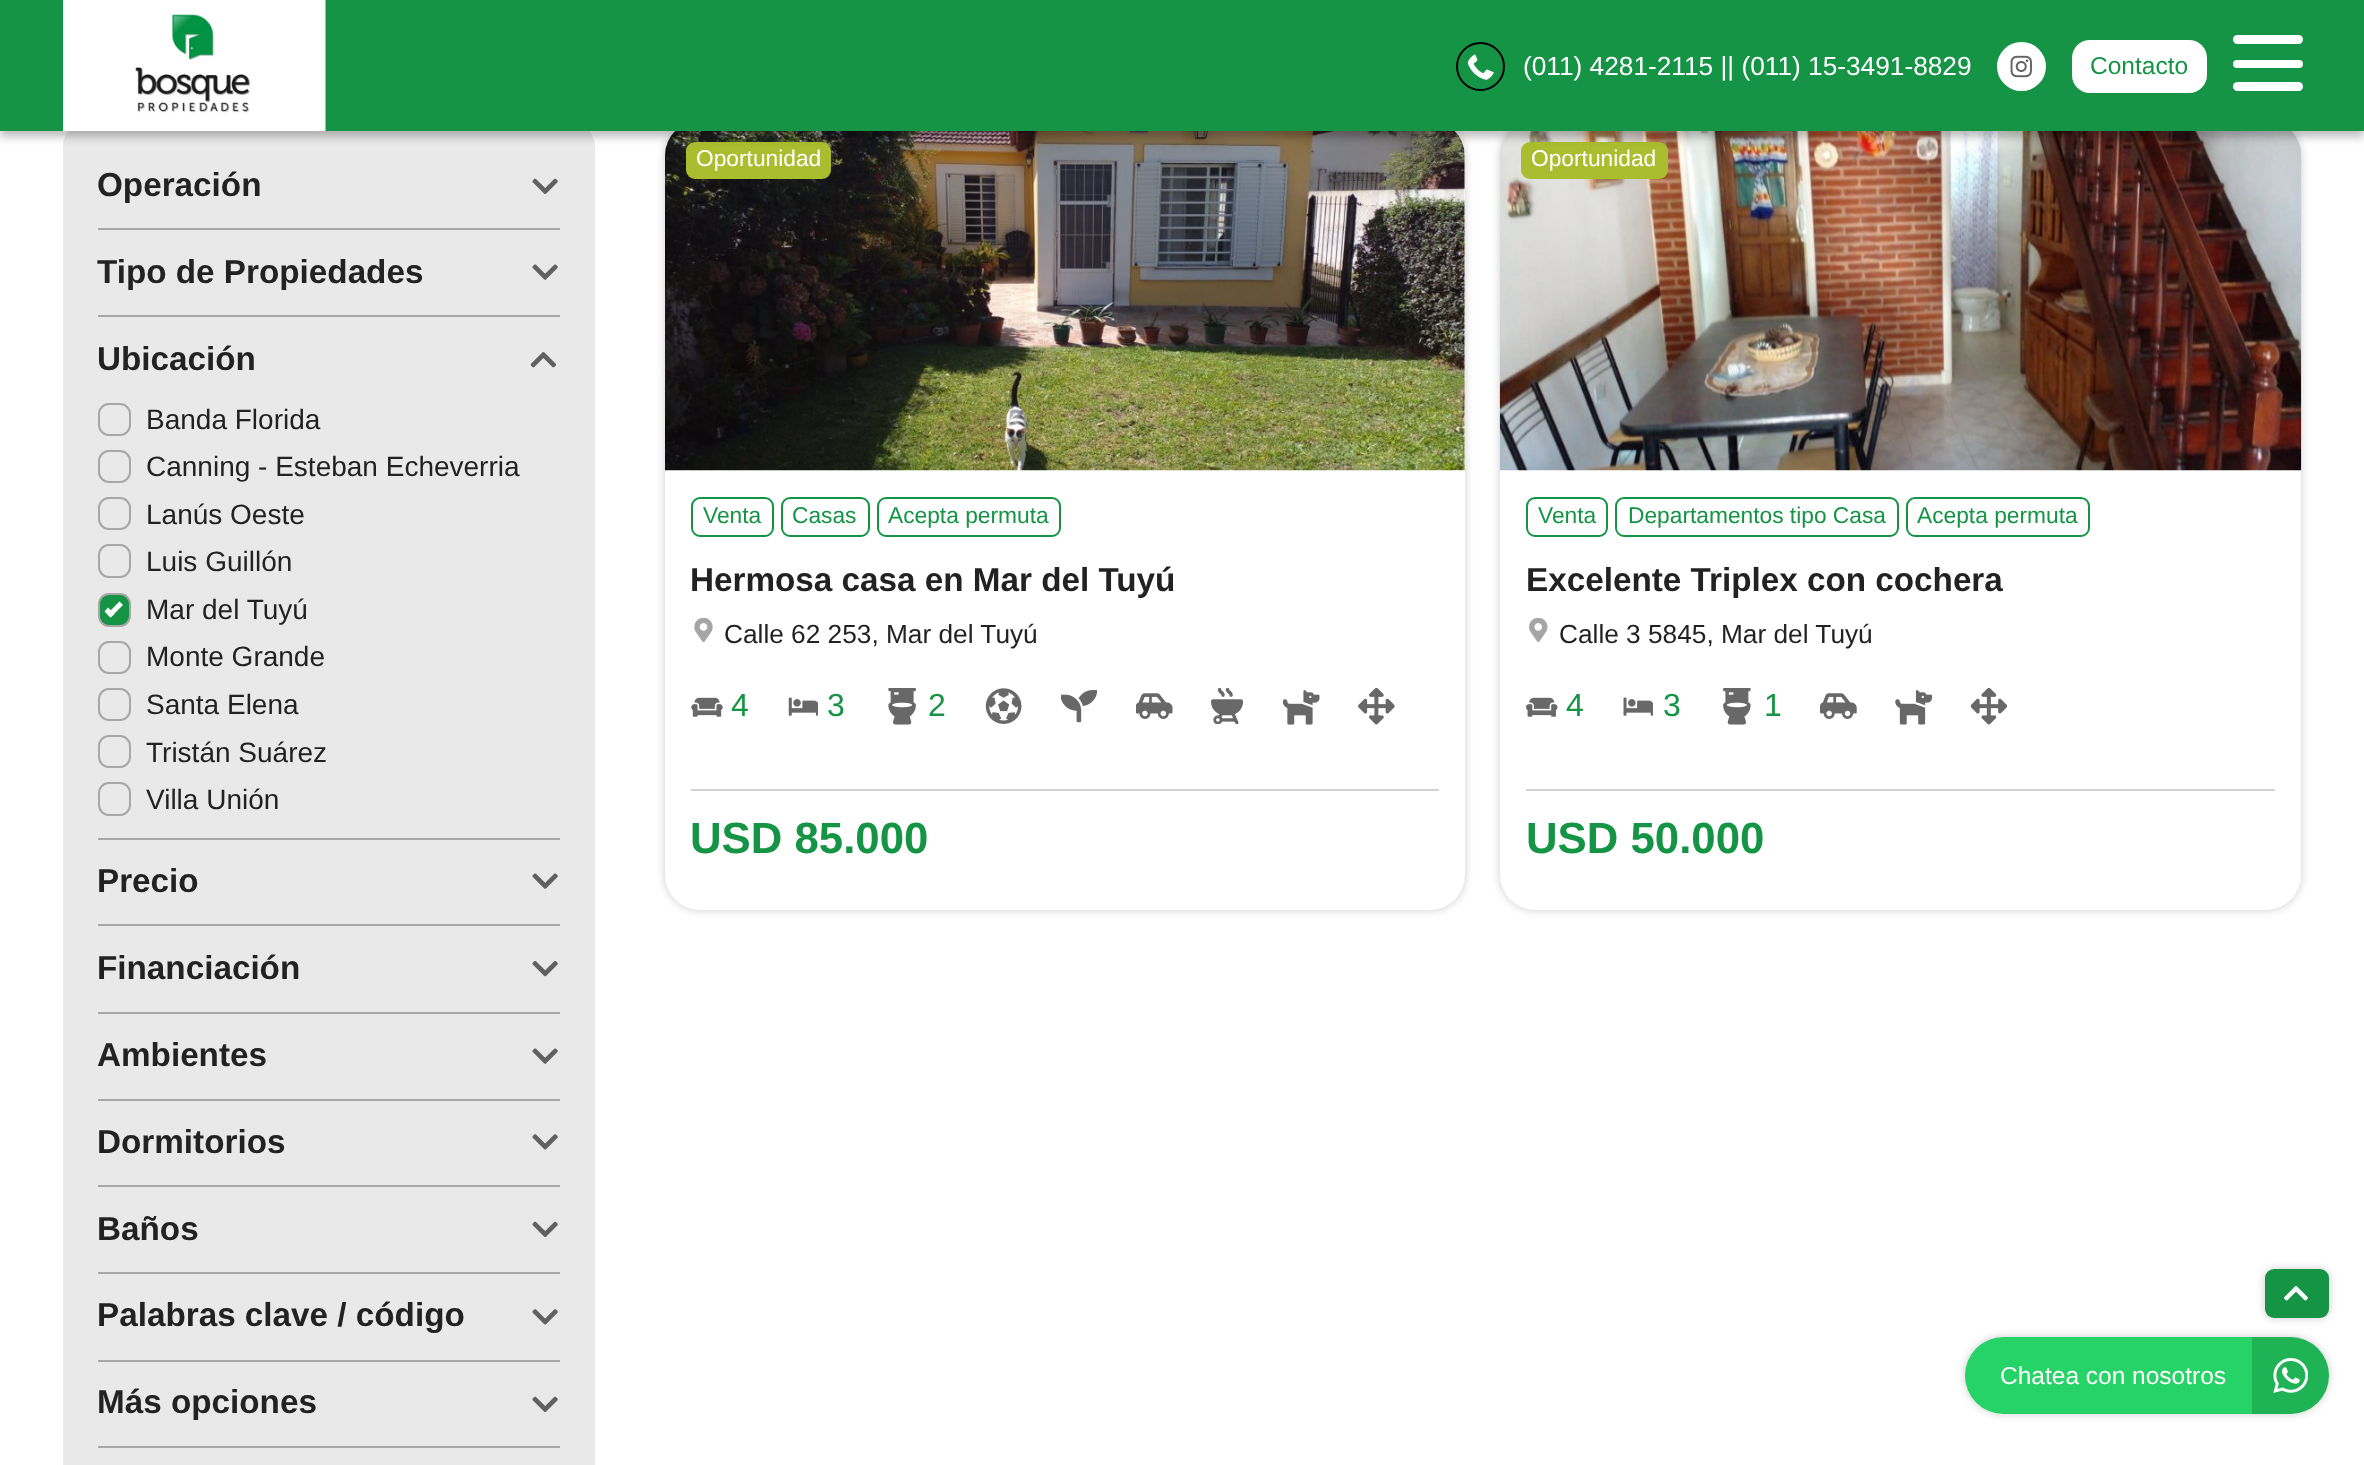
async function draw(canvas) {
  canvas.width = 2364;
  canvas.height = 1465;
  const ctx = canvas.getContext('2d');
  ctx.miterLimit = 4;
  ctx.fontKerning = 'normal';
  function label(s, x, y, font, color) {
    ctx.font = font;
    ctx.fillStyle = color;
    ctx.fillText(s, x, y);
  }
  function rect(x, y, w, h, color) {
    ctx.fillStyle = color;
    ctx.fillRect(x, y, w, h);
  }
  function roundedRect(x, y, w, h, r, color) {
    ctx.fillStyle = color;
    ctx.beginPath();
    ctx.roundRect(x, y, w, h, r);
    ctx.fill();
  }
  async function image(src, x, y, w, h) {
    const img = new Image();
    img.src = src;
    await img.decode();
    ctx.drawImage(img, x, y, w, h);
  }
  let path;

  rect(0, 0, 2364, 1465, '#fff');
  roundedRect(63, 121, 532, 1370, 26, '#e9e9e9');
  ctx.fillStyle = '#00000033';
  ctx.filter = 'blur(4.5px)';
  ctx.beginPath();
  ctx.roundRect(665, 121, 800, 789, 35);
  ctx.fill();
  ctx.filter = 'none';
  roundedRect(665, 121, 800, 789, 35, '#fff');
  await image('assets/img9.png', 665, 131, 800, 340);
  roundedRect(686, 142, 145, 37, 9, '#a9be2e');
  ctx.fillStyle = '#00000033';
  ctx.filter = 'blur(4.5px)';
  ctx.beginPath();
  ctx.roundRect(1500, 121, 801, 789, 35);
  ctx.fill();
  ctx.filter = 'none';
  roundedRect(1500, 121, 801, 789, 35, '#fff');
  await image('assets/img20.png', 1499, 131, 803, 340);
  roundedRect(1521, 142, 147, 37, 9, '#a9be2e');
  ctx.fillStyle = '#00000040';
  ctx.filter = 'blur(4.5px)';
  ctx.beginPath();
  ctx.rect(0, 5, 2364, 132);
  ctx.fill();
  ctx.filter = 'none';
  rect(0, 0, 2364, 131, '#169446');
  await image('assets/img1.png', 63, 0, 263, 131);
  ctx.beginPath();
  ctx.arc(1480.5, 66.5, 23.5, 0, 2 * Math.PI);
  ctx.strokeStyle = '#000';
  ctx.lineWidth = 2;
  ctx.stroke();
  await image('assets/img2.png', 1467, 54, 27, 26);
  label('(011) 4281-2115 || (011) 15-3491-8829', 1523, 75, '26.25px Liberation Sans', '#fff');
  ctx.beginPath();
  ctx.arc(2021.5, 66.5, 24.5, 0, 2 * Math.PI);
  ctx.fill();
  await image('assets/img3.png', 2010, 55, 22, 23);
  roundedRect(2072, 40, 135, 53, 18, '#fff');
  label('Contacto', 2090, 74, '24.5px Liberation Sans', '#169446');
  roundedRect(2233, 35, 70, 9, 4.5, '#fff');
  roundedRect(2233, 60, 70, 8, 4, '#fff');
  roundedRect(2233, 82, 70, 9, 4.5, '#fff');
  rect(98, 228, 462, 2, '#a7a7a7');
  label('Operación', 97, 196, 'bold 33.25px Liberation Sans', '#222');
  await image('assets/img4.png', 532, 178, 26, 16);
  rect(98, 315, 462, 2, '#a7a7a7');
  label('Tipo de Propiedades', 97, 283, 'bold 33.25px Liberation Sans', '#222');
  await image('assets/img5.png', 532, 264, 26, 16);
  rect(98, 838, 462, 2, '#a7a7a7');
  label('Ubicación', 97, 370, 'bold 33.25px Liberation Sans', '#222');
  await image('assets/img6.png', 530, 352, 26, 16);
  ctx.beginPath();
  ctx.roundRect(99, 404, 31, 31, 10);
  ctx.strokeStyle = '#a7a7a7';
  ctx.stroke();
  label('Banda Florida', 146, 429, '28px Liberation Sans', '#222');
  ctx.beginPath();
  ctx.roundRect(99, 451, 31, 31, 10);
  ctx.stroke();
  label('Canning - Esteban Echeverria', 146, 476, '28px Liberation Sans', '#222');
  ctx.beginPath();
  ctx.roundRect(99, 498, 31, 31, 10);
  ctx.stroke();
  label('Lanús Oeste', 146, 524, '28px Liberation Sans', '#222');
  ctx.beginPath();
  ctx.roundRect(99, 545, 31, 32, 10);
  ctx.stroke();
  label('Luis Guillón', 146, 571, '28px Liberation Sans', '#222');
  ctx.fillStyle = '#169446';
  ctx.beginPath();
  ctx.roundRect(99, 594, 31, 32, 10);
  ctx.fill();
  ctx.stroke();
  ctx.fillStyle = '#fff';
  path = new Path2D('M119.5 601.5L123 605L110.5 617.5L107 614Z');
  ctx.fill(path);
  path = new Path2D('M108 607.5L114.5 614L110.5 617.5L104.5 611.5Z');
  ctx.fill(path);
  label('Mar del Tuyú', 146, 619, '28px Liberation Sans', '#222');
  ctx.beginPath();
  ctx.roundRect(99, 642, 31, 31, 10);
  ctx.stroke();
  label('Monte Grande', 146, 666, '28px Liberation Sans', '#222');
  ctx.beginPath();
  ctx.roundRect(99, 689, 31, 31, 10);
  ctx.stroke();
  label('Santa Elena', 146, 714, '28px Liberation Sans', '#222');
  ctx.beginPath();
  ctx.roundRect(99, 736, 31, 31, 10);
  ctx.stroke();
  label('Tristán Suárez', 146, 762, '28px Liberation Sans', '#222');
  ctx.beginPath();
  ctx.roundRect(99, 783, 31, 32, 10);
  ctx.stroke();
  label('Villa Unión', 146, 809, '28px Liberation Sans', '#222');
  rect(98, 924, 462, 2, '#a7a7a7');
  label('Precio', 97, 892, 'bold 33.25px Liberation Sans', '#222');
  await image('assets/img5.png', 532, 873, 26, 16);
  rect(98, 1012, 462, 2, '#a7a7a7');
  label('Financiación', 97, 979, 'bold 33.25px Liberation Sans', '#222');
  await image('assets/img7.png', 532, 961, 26, 16);
  rect(98, 1099, 462, 2, '#a7a7a7');
  label('Ambientes', 97, 1066, 'bold 33.25px Liberation Sans', '#222');
  await image('assets/img5.png', 532, 1048, 26, 16);
  rect(98, 1185, 462, 2, '#a7a7a7');
  label('Dormitorios', 97, 1153, 'bold 33.25px Liberation Sans', '#222');
  await image('assets/img8.png', 532, 1134, 26, 16);
  rect(98, 1272, 462, 2, '#a7a7a7');
  label('Baños', 97, 1240, 'bold 33.25px Liberation Sans', '#222');
  await image('assets/img4.png', 532, 1221, 26, 16);
  rect(98, 1360, 462, 2, '#a7a7a7');
  label('Palabras clave / código', 97, 1326, 'bold 33.25px Liberation Sans', '#222');
  await image('assets/img8.png', 532, 1309, 26, 16);
  rect(98, 1446, 462, 2, '#a7a7a7');
  label('Más opciones', 97, 1413, 'bold 33.25px Liberation Sans', '#222');
  await image('assets/img4.png', 532, 1396, 26, 16);
  label('Oportunidad', 696, 166, '22.75px Liberation Sans', '#fff');
  ctx.beginPath();
  ctx.roundRect(692, 498, 81, 38, 8);
  ctx.strokeStyle = '#169446';
  ctx.stroke();
  label('Venta', 703, 523, '22.75px Liberation Sans', '#169446');
  ctx.beginPath();
  ctx.roundRect(782, 498, 87, 38, 8);
  ctx.stroke();
  label('Casas', 792, 523, '22.75px Liberation Sans', '#169446');
  ctx.beginPath();
  ctx.roundRect(878, 498, 182, 38, 8);
  ctx.stroke();
  label('Acepta permuta', 888, 523, '22.75px Liberation Sans', '#169446');
  label('Hermosa casa en Mar del Tuyú', 690, 591, 'bold 33.25px Liberation Sans', '#222');
  await image('assets/img10.png', 694, 618, 19, 24);
  label('Calle 62 253, Mar del Tuyú', 724, 643, '26.25px Liberation Sans', '#222');
  await image('assets/img11.png', 691, 697, 32, 20);
  label('4', 731, 716, '32px Liberation Sans', '#169446');
  await image('assets/img12.png', 788, 697, 30, 19);
  label('3', 827, 716, '32px Liberation Sans', '#169446');
  await image('assets/img13.png', 888, 688, 28, 37);
  label('2', 928, 716, '32px Liberation Sans', '#169446');
  await image('assets/img14.png', 985, 688, 37, 36);
  await image('assets/img15.png', 1061, 690, 36, 33);
  await image('assets/img16.png', 1136, 693, 37, 26);
  await image('assets/img17.png', 1211, 688, 32, 36);
  await image('assets/img18.png', 1283, 690, 37, 35);
  await image('assets/img19.png', 1358, 688, 37, 37);
  rect(691, 789, 748, 2, '#d2d2d2');
  label('USD 85.000', 690, 853, 'bold 43.75px Liberation Sans', '#169446');
  label('Oportunidad', 1531, 166, '22.75px Liberation Sans', '#fff');
  ctx.beginPath();
  ctx.roundRect(1527, 498, 80, 38, 8);
  ctx.stroke();
  label('Venta', 1538, 523, '22.75px Liberation Sans', '#169446');
  ctx.beginPath();
  ctx.roundRect(1616, 498, 282, 38, 8);
  ctx.stroke();
  label('Departamentos tipo Casa', 1628, 523, '22.75px Liberation Sans', '#169446');
  ctx.beginPath();
  ctx.roundRect(1907, 498, 182, 38, 8);
  ctx.stroke();
  label('Acepta permuta', 1917, 523, '22.75px Liberation Sans', '#169446');
  label('Excelente Triplex con cochera', 1526, 591, 'bold 33.25px Liberation Sans', '#222');
  await image('assets/img21.png', 1529, 618, 19, 24);
  label('Calle 3 5845, Mar del Tuyú', 1559, 643, '26.25px Liberation Sans', '#222');
  await image('assets/img22.png', 1526, 697, 32, 20);
  label('4', 1566, 716, '32px Liberation Sans', '#169446');
  await image('assets/img23.png', 1623, 697, 30, 19);
  label('3', 1663, 716, '32px Liberation Sans', '#169446');
  await image('assets/img24.png', 1723, 688, 28, 37);
  label('1', 1764, 716, '32px Liberation Sans', '#169446');
  await image('assets/img25.png', 1820, 693, 37, 26);
  await image('assets/img26.png', 1895, 690, 37, 35);
  await image('assets/img27.png', 1971, 688, 36, 37);
  rect(1526, 789, 749, 2, '#d2d2d2');
  label('USD 50.000', 1526, 853, 'bold 43.75px Liberation Sans', '#169446');
  ctx.fillStyle = '#00000033';
  ctx.filter = 'blur(4.5px)';
  ctx.beginPath();
  ctx.roundRect(2265, 1269, 64, 49, 9);
  ctx.fill();
  ctx.filter = 'none';
  roundedRect(2265, 1269, 64, 49, 9, '#169446');
  await image('assets/img28.png', 2284, 1286, 24, 15);
  ctx.fillStyle = '#00000033';
  ctx.filter = 'blur(4.5px)';
  ctx.beginPath();
  ctx.roundRect(1965, 1337, 364, 77, 38.5);
  ctx.fill();
  ctx.filter = 'none';
  roundedRect(1965, 1337, 364, 77, 38.5, '#25d366');
  label('Chatea con nosotros', 2000, 1384, '24.5px Liberation Sans', '#fff');
  ctx.fillStyle = '#00000026';
  ctx.beginPath();
  ctx.roundRect(2252, 1337, 77, 77, [0, 38.5, 38.5, 0]);
  ctx.fill();
  await image('assets/img29.png', 2273, 1358, 35, 35);
}

draw(document.querySelector('canvas'));
